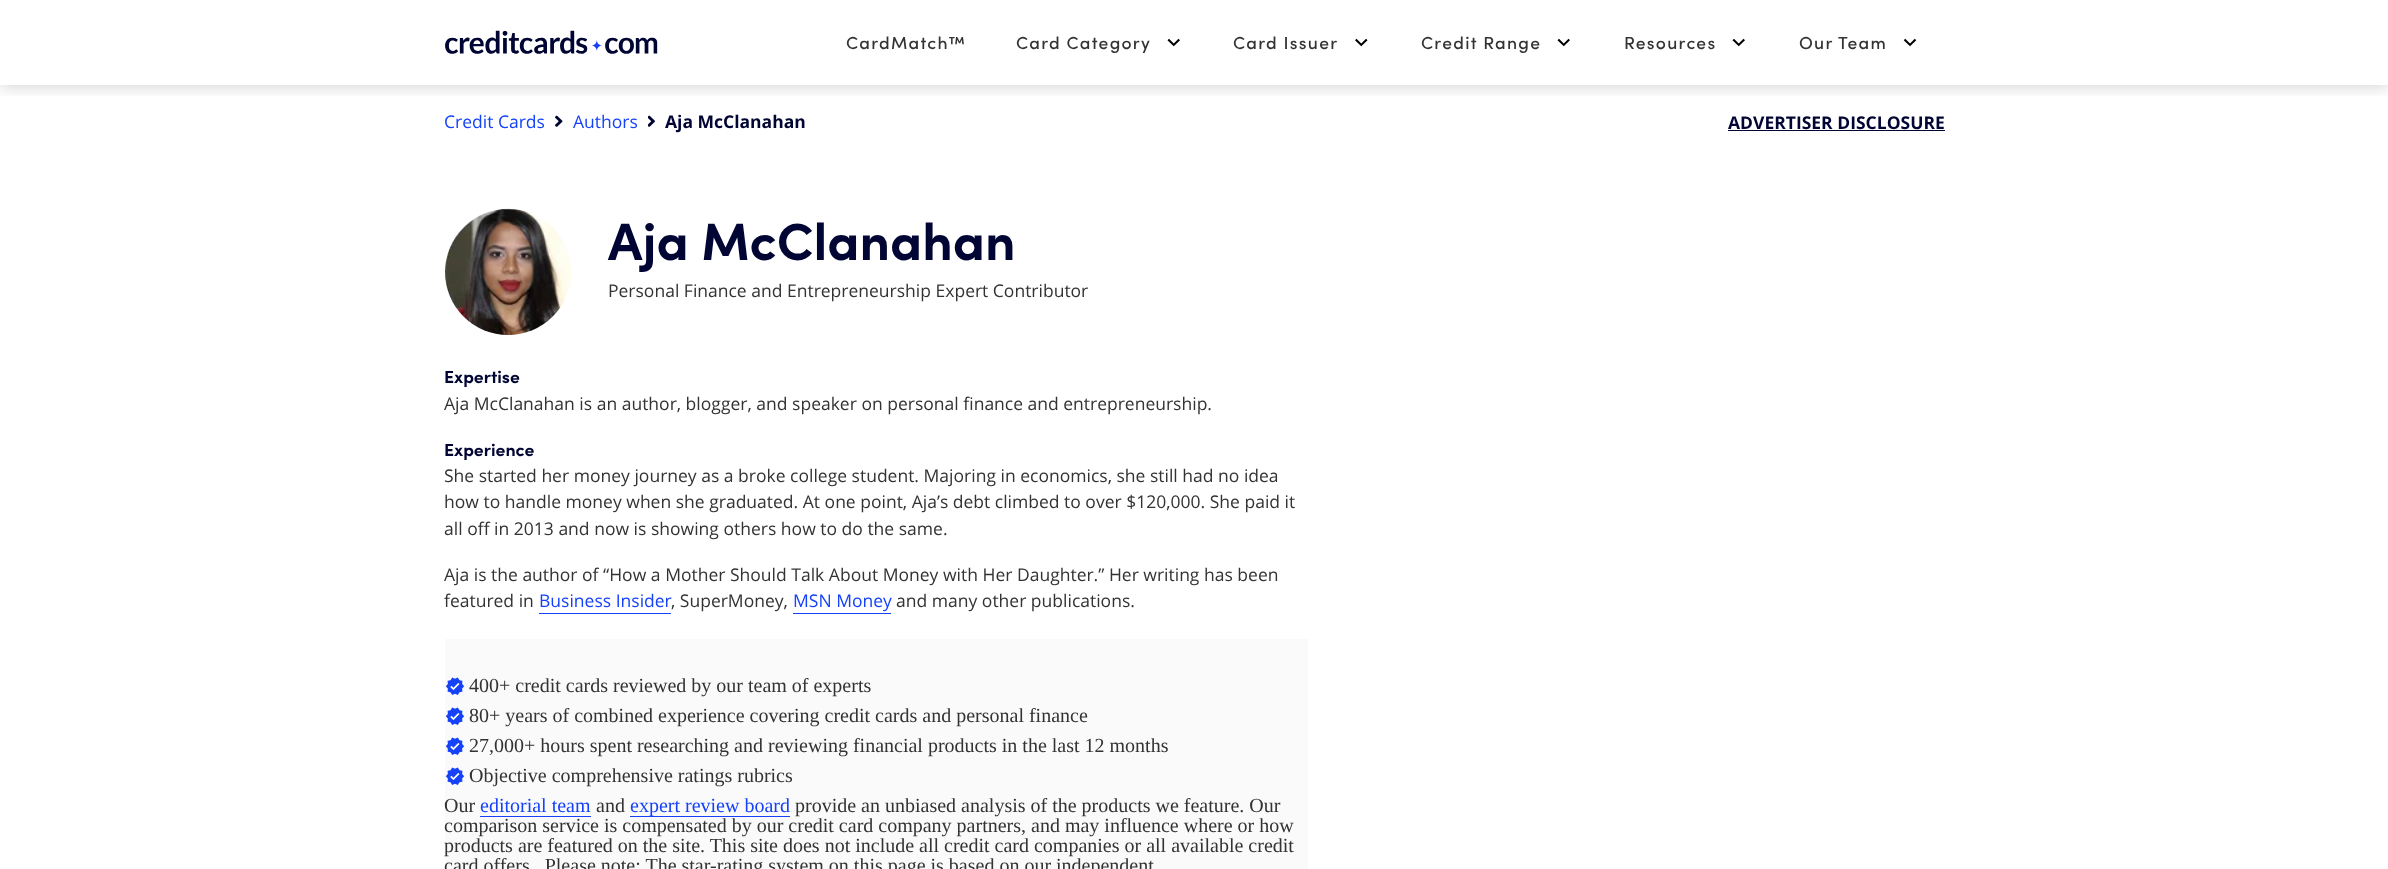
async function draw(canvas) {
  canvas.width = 2388;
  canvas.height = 869;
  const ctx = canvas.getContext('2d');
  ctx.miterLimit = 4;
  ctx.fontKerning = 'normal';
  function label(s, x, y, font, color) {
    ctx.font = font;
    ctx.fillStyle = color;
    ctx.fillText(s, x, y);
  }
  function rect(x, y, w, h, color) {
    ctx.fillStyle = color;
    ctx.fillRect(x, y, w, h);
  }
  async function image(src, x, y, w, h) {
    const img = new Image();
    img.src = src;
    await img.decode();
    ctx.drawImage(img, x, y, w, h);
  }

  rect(0, 0, 2388, 869, '#fff');
  ctx.save();
  ctx.beginPath();
  ctx.rect(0, 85, 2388, 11);
  ctx.clip();
  ctx.fillStyle = '#00000026';
  ctx.filter = 'blur(7.5px)';
  ctx.beginPath();
  ctx.rect(0, 3, 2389, 85);
  ctx.fill();
  ctx.filter = 'none';
  ctx.restore();
  await image('assets/img1.png', 445, 30, 213, 24);
  ctx.letterSpacing = '1.25px';
  label('CardMatch™', 846, 49, '500 17.5px Sofia', '#333');
  label('Card Category', 1016, 49, '500 17.5px Sofia', '#333');
  await image('assets/img2.png', 1167, 38, 13, 9);
  label('Card Issuer', 1233, 49, '500 17.5px Sofia', '#333');
  await image('assets/img3.png', 1355, 38, 13, 9);
  label('Credit Range', 1421, 49, '500 17.5px Sofia', '#333');
  await image('assets/img2.png', 1557, 38, 13, 9);
  label('Resources', 1624, 49, '500 17.5px Sofia', '#333');
  await image('assets/img2.png', 1732, 38, 13, 9);
  label('Our Team', 1799, 49, '500 17.5px Sofia', '#333');
  await image('assets/img4.png', 1903, 38, 14, 9);
  ctx.letterSpacing = '0px';
  label('Credit Cards', 444, 128, '17.5px Open Sans', '#1542f8');
  await image('assets/img5.png', 555, 115, 8, 12);
  label('Authors', 573, 128, '17.5px Open Sans', '#1542f8');
  await image('assets/img6.png', 648, 115, 7, 12);
  label('Aja McClanahan', 665, 128, 'bold 17.5px Open Sans', '#000533');
  label('ADVERTISER DISCLOSURE', 1728, 129, 'bold 17.5px Open Sans', '#000533');
  rect(1728, 130, 217, 1, '#000533');
  await image('assets/img7.png', 445, 208, 126, 127);
  label('Aja McClanahan', 608, 260, 'bold 52.5px Sofia', '#000533');
  label('Personal Finance and Entrepreneurship Expert Contributor', 608, 297, '17.5px Open Sans', '#333');
  label('Expertise', 444, 383, 'bold 17.5px Sofia', '#000533');
  label('Aja McClanahan is an author, blogger, and speaker on personal finance and entrepreneurship.', 444, 410, '17.5px Open Sans', '#333');
  label('Experience', 444, 456, 'bold 17.5px Sofia', '#000533');
  label('She started her money journey as a broke college student. Majoring in economics, she still had no idea', 444, 482, '17.5px Open Sans', '#333');
  label('how to handle money when she graduated. At one point, Aja’s debt climbed to over $120,000. She paid it', 444, 508, '17.5px Open Sans', '#333');
  label('all off in 2013 and now is showing others how to do the same.', 444, 535, '17.5px Open Sans', '#333');
  label('Aja is the author of “How a Mother Should Talk About Money with Her Daughter.” Her writing has been', 444, 581, '17.5px Open Sans', '#333');
  label('featured in', 444, 607, '17.5px Open Sans', '#333');
  label('Business Insider', 539, 607, '17.5px Open Sans', '#1542f8');
  rect(539, 613, 132, 1, '#1542f8');
  label(', SuperMoney,', 671, 607, '17.5px Open Sans', '#333');
  label('MSN Money', 793, 607, '17.5px Open Sans', '#1542f8');
  rect(793, 613, 98, 1, '#1542f8');
  label('and many other publications.', 896, 607, '17.5px Open Sans', '#333');
  rect(445, 639, 863, 230, '#fafafa');
  await image('assets/img8.png', 445, 677, 20, 18);
  label('400+ credit cards reviewed by our team of experts', 469, 692, '20px Liberation Serif', '#333');
  await image('assets/img8.png', 445, 707, 20, 18);
  label('80+ years of combined experience covering credit cards and personal finance', 469, 722, '20px Liberation Serif', '#333');
  await image('assets/img8.png', 445, 737, 20, 18);
  label('27,000+ hours spent researching and reviewing financial products in the last 12 months', 469, 752, '20px Liberation Serif', '#333');
  await image('assets/img8.png', 445, 767, 20, 18);
  label('Objective comprehensive ratings rubrics', 469, 782, '20px Liberation Serif', '#333');
  label('Our', 444, 812, '20px Liberation Serif', '#333');
  label('editorial team', 480, 812, '20px Liberation Serif', '#1542f8');
  rect(480, 816, 111, 1, '#1542f8');
  label('and', 596, 812, '20px Liberation Serif', '#333');
  rect(630, 816, 160, 1, '#1542f8');
  label('expert review board', 630, 812, '20px Liberation Serif', '#1542f8');
  label('provide an unbiased analysis of the products we feature. Our', 795, 812, '20px Liberation Serif', '#333');
  label('comparison service is compensated by our credit card company partners, and may influence where or how', 444, 832, '20px Liberation Serif', '#333');
  label('products are featured on the site. This site does not include all credit card companies or all available credit', 444, 852, '20px Liberation Serif', '#333');
  label('card offers.  Please note: The star-rating system on this page is based on our independent', 444, 872, '20px Liberation Serif', '#333');
}

draw(document.querySelector('canvas'));
